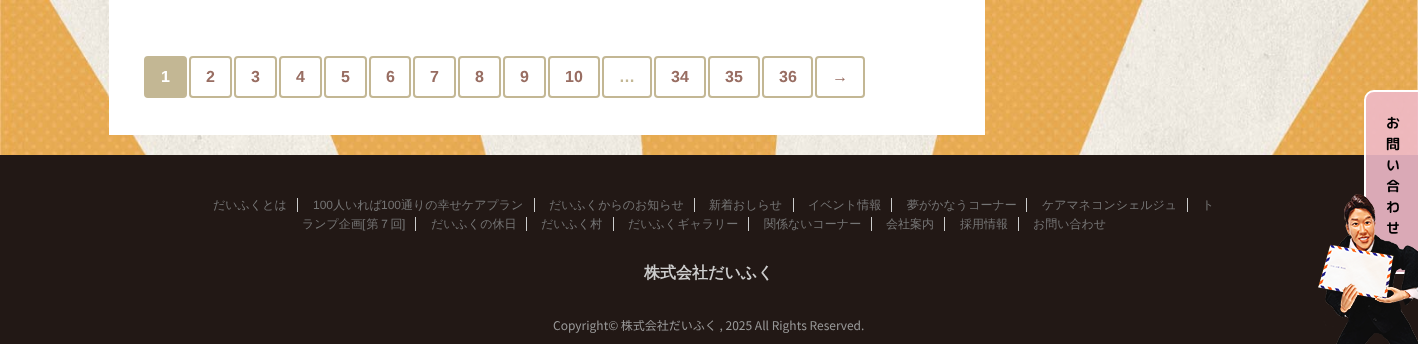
async function draw(canvas) {
  canvas.width = 1418;
  canvas.height = 344;
  const ctx = canvas.getContext('2d');
  ctx.miterLimit = 4;
  ctx.fontKerning = 'none';
  function label(s, x, y, font, color) {
    ctx.font = font;
    ctx.fillStyle = color;
    ctx.fillText(s, x, y);
  }
  function rect(x, y, w, h, color) {
    ctx.fillStyle = color;
    ctx.fillRect(x, y, w, h);
  }
  async function image(src, x, y, w, h) {
    const img = new Image();
    img.src = src;
    await img.decode();
    ctx.drawImage(img, x, y, w, h);
  }
  let path;

  rect(0, 0, 1418, 344, '#fff');
  await image('assets/img1.png', 0, 0, 1418, 155);
  rect(109, 0, 876, 135, '#fff');
  ctx.fillStyle = '#c3b794';
  ctx.beginPath();
  ctx.roundRect(145, 57, 41, 40, 3);
  ctx.fill();
  ctx.strokeStyle = '#c3b794';
  ctx.lineWidth = 2;
  ctx.stroke();
  label('1', 161, 82, 'bold 16px Liberation Sans', '#fff');
  ctx.beginPath();
  ctx.roundRect(190, 57, 41, 40, 3);
  ctx.stroke();
  label('2', 206, 82, 'bold 16px Liberation Sans', '#986d62');
  ctx.beginPath();
  ctx.roundRect(235, 57, 41, 40, 3);
  ctx.stroke();
  label('3', 251, 82, 'bold 16px Liberation Sans', '#986d62');
  ctx.beginPath();
  ctx.roundRect(280, 57, 41, 40, 3);
  ctx.stroke();
  label('4', 296, 82, 'bold 16px Liberation Sans', '#986d62');
  ctx.beginPath();
  ctx.roundRect(325, 57, 41, 40, 3);
  ctx.stroke();
  label('5', 341, 82, 'bold 16px Liberation Sans', '#986d62');
  ctx.beginPath();
  ctx.roundRect(370, 57, 40, 40, 3);
  ctx.stroke();
  label('6', 386, 82, 'bold 16px Liberation Sans', '#986d62');
  ctx.beginPath();
  ctx.roundRect(414, 57, 41, 40, 3);
  ctx.stroke();
  label('7', 430, 82, 'bold 16px Liberation Sans', '#986d62');
  ctx.beginPath();
  ctx.roundRect(459, 57, 41, 40, 3);
  ctx.stroke();
  label('8', 475, 82, 'bold 16px Liberation Sans', '#986d62');
  ctx.beginPath();
  ctx.roundRect(504, 57, 41, 40, 3);
  ctx.stroke();
  label('9', 520, 82, 'bold 16px Liberation Sans', '#986d62');
  ctx.beginPath();
  ctx.roundRect(549, 57, 50, 40, 3);
  ctx.stroke();
  label('10', 565, 82, 'bold 16px Liberation Sans', '#986d62');
  ctx.beginPath();
  ctx.roundRect(603, 57, 48, 40, 3);
  ctx.stroke();
  label('…', 619, 82, 'bold 16px Liberation Sans', '#c3b794');
  ctx.beginPath();
  ctx.roundRect(655, 57, 50, 40, 3);
  ctx.stroke();
  label('34', 671, 82, 'bold 16px Liberation Sans', '#986d62');
  ctx.beginPath();
  ctx.roundRect(709, 57, 50, 40, 3);
  ctx.stroke();
  label('35', 725, 82, 'bold 16px Liberation Sans', '#986d62');
  ctx.beginPath();
  ctx.roundRect(763, 57, 49, 40, 3);
  ctx.stroke();
  label('36', 779, 82, 'bold 16px Liberation Sans', '#986d62');
  ctx.beginPath();
  ctx.roundRect(816, 57, 48, 40, 3);
  ctx.stroke();
  label('→', 832, 82, 'bold 16px Liberation Sans', '#986d62');
  rect(0, 155, 1418, 189, '#221815');
  label('だいふくとは', 213, 209, '500 12px WenQuanYi Zen Hei', '#757575');
  rect(297, 198, 1, 14, '#ccc');
  label('100', 313, 209, '12px Liberation Sans', '#757575');
  label('人いれば', 333, 209, '500 12px WenQuanYi Zen Hei', '#757575');
  label('100', 381, 209, '12px Liberation Sans', '#757575');
  label('通りの幸せケアプラン', 401, 209, '500 12px WenQuanYi Zen Hei', '#757575');
  rect(534, 198, 1, 14, '#ccc');
  label('だいふくからのお知らせ', 549, 209, '500 12px WenQuanYi Zen Hei', '#757575');
  rect(694, 198, 1, 14, '#ccc');
  label('新着おしらせ', 709, 209, '500 12px WenQuanYi Zen Hei', '#757575');
  rect(793, 198, 1, 14, '#ccc');
  label('イベント情報', 808, 209, '500 12px WenQuanYi Zen Hei', '#757575');
  rect(891, 198, 1, 14, '#ccc');
  label('夢がかなうコーナー', 907, 209, '500 12px WenQuanYi Zen Hei', '#757575');
  rect(1026, 198, 1, 14, '#ccc');
  label('ケアマネコンシェルジュ', 1042, 209, '500 12px WenQuanYi Zen Hei', '#757575');
  rect(1187, 198, 1, 14, '#ccc');
  label('ト', 1202, 209, '500 12px WenQuanYi Zen Hei', '#757575');
  label('ランプ企画 第７回', 302, 228, '500 12px WenQuanYi Zen Hei', '#757575');
  label('だいふくの休日', 431, 228, '500 12px WenQuanYi Zen Hei', '#757575');
  rect(526, 217, 1, 14, '#ccc');
  label('だいふく村', 541, 228, '500 12px WenQuanYi Zen Hei', '#757575');
  rect(613, 217, 1, 14, '#ccc');
  label('だいふくギャラリー', 628, 228, '500 12px WenQuanYi Zen Hei', '#757575');
  rect(748, 217, 1, 14, '#ccc');
  label('関係ないコーナー', 764, 228, '500 12px WenQuanYi Zen Hei', '#757575');
  rect(871, 217, 1, 14, '#ccc');
  label('会社案内', 886, 228, '500 12px WenQuanYi Zen Hei', '#757575');
  rect(944, 217, 1, 14, '#ccc');
  label('採用情報', 960, 228, '500 12px WenQuanYi Zen Hei', '#757575');
  rect(1018, 217, 1, 14, '#ccc');
  label('お問い合わせ', 1033, 228, '500 12px WenQuanYi Zen Hei', '#757575');
  label('[', 362, 228, '12px Liberation Sans', '#757575');
  label(']', 402, 228, '12px Liberation Sans', '#757575');
  rect(415, 217, 1, 14, '#ccc');
  label('株式会社だいふく', 644, 278, 'bold 16px WenQuanYi Zen Hei', '#ccc');
  label('Copyright© 株式会社だいふく , 2025 All Rights Reserved.', 553, 330, '100 12px Noto Sans JP', '#999');
  ctx.fillStyle = '#eeb9c8e6';
  path = new Path2D('M1374 91H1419V273H1374C1369 273 1365 269 1365 264V100C1365 95 1369 91 1374 91Z');
  ctx.fill(path);
  ctx.strokeStyle = '#fff';
  ctx.stroke(path);
  label('お', 1386, 128, 'bold 14px "Rounded Mplus 1c Bold"', '#000');
  label('問', 1386, 149, 'bold 14px "Rounded Mplus 1c Bold"', '#000');
  label('い', 1386, 170, 'bold 14px "Rounded Mplus 1c Bold"', '#000');
  label('合', 1386, 191, 'bold 14px "Rounded Mplus 1c Bold"', '#000');
  await image('assets/img2.png', 1318, 194, 100, 150);
  label('わ', 1386, 212, 'bold 14px "Rounded Mplus 1c Bold"', '#000');
  label('せ', 1386, 233, 'bold 14px "Rounded Mplus 1c Bold"', '#000');
}

draw(document.querySelector('canvas'));
